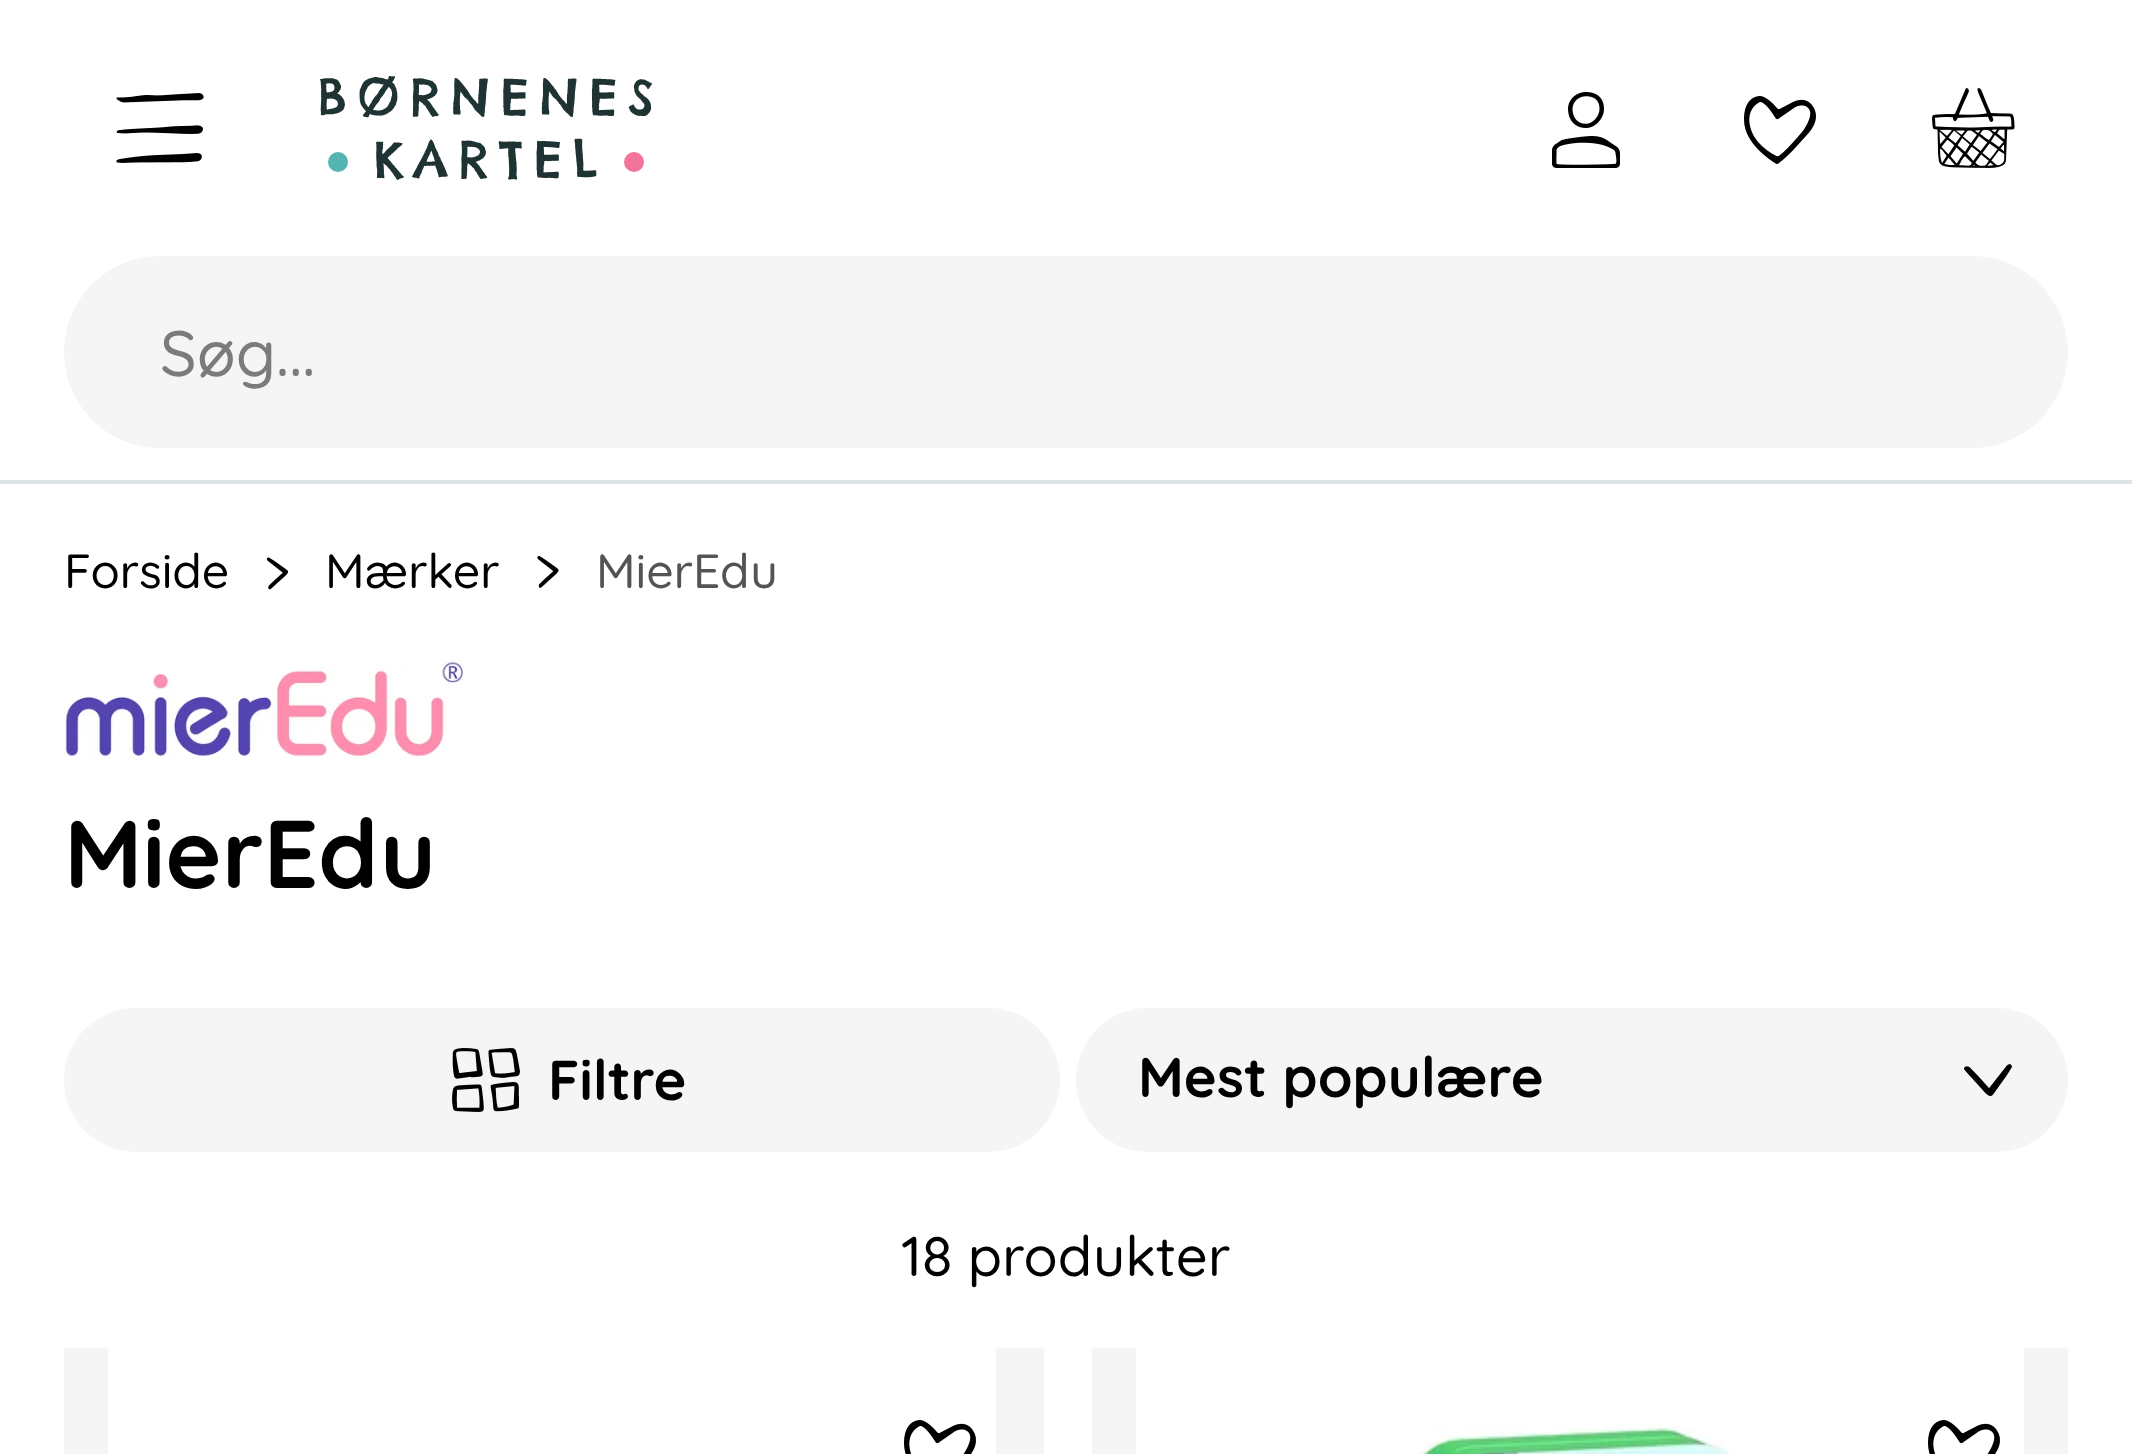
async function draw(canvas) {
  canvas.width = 2132;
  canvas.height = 1454;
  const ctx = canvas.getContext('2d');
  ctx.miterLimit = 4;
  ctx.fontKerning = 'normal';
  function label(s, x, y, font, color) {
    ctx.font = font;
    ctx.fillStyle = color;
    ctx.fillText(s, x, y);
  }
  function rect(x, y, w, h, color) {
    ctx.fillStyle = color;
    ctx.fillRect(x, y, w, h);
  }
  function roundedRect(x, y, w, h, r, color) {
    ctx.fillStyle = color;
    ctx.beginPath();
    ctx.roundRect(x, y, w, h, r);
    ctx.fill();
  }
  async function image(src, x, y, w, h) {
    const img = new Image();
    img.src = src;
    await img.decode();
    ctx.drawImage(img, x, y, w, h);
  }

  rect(0, 0, 2132, 1454, '#fff');
  rect(0, 480, 2132, 4, '#dce5e5');
  await image('assets/img1.png', 116, 93, 88, 70);
  await image('assets/img2.png', 320, 76, 332, 104);
  await image('assets/img3.png', 1552, 92, 68, 76);
  await image('assets/img4.png', 1744, 96, 72, 68);
  await image('assets/img5.png', 1932, 88, 83, 80);
  roundedRect(64, 256, 2004, 192, 96, '#f5f5f5');
  label('Søg...', 160, 376, '500 64px Quicksand', '#7b7b7b');
  label('Forside', 64, 588, '500 48px Quicksand', '#000');
  await image('assets/img6.png', 266, 557, 22, 33);
  label('Mærker', 325, 588, '500 48px Quicksand', '#000');
  await image('assets/img7.png', 537, 555, 22, 33);
  label('MierEdu', 596, 588, '500 48px Quicksand', '#545454');
  await image('assets/img8.png', 64, 660, 400, 99);
  label('MierEdu', 64, 888, 'bold 96px Quicksand', '#000');
  roundedRect(64, 1008, 996, 144, 72, '#f5f5f5');
  await image('assets/img9.png', 452, 1048, 68, 64);
  label('Filtre', 548, 1100, 'bold 56px Quicksand', '#000');
  roundedRect(1076, 1008, 992, 144, 72, '#f5f5f5');
  label('Mest populære', 1138, 1097, 'bold 56px Quicksand', '#000');
  await image('assets/img10.png', 1964, 1064, 48, 32);
  label('18 produkter', 901, 1276, '500 56px Quicksand', '#000');
  rect(64, 1348, 980, 106, '#f5f5f5');
  rect(108, 1348, 888, 106, '#fff');
  await image('assets/img11.png', 904, 1420, 72, 34);
  rect(1092, 1348, 976, 106, '#f5f5f5');
  await image('assets/img12.png', 1136, 1348, 888, 106);
  await image('assets/img11.png', 1928, 1420, 72, 34);
}

draw(document.querySelector('canvas'));
